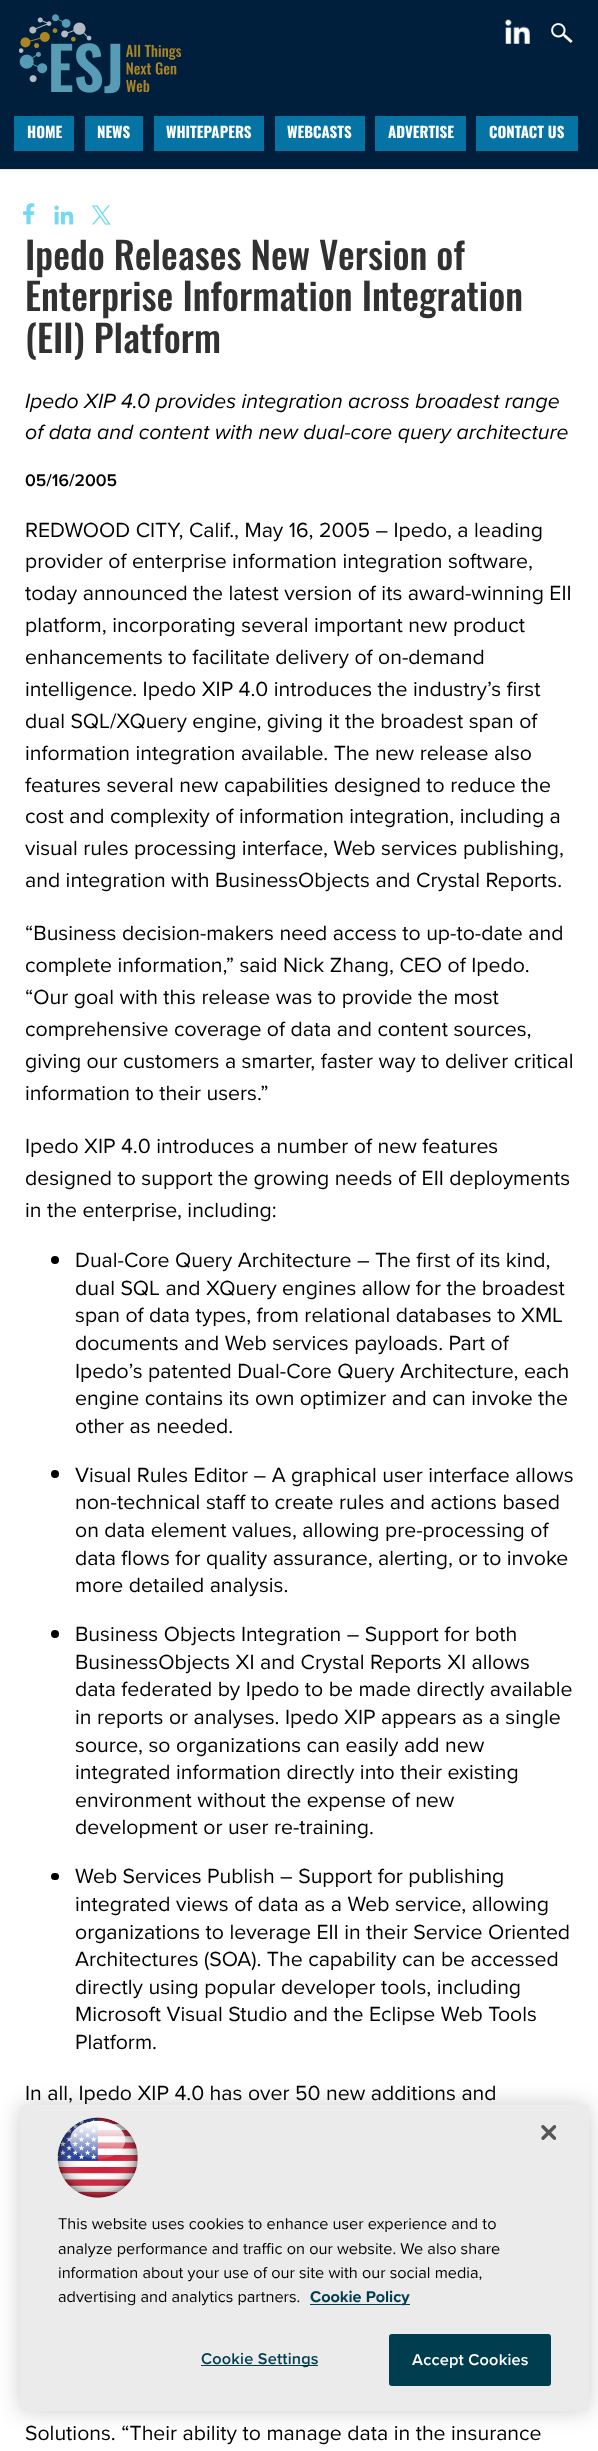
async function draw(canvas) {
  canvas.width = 598;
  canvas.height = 2451;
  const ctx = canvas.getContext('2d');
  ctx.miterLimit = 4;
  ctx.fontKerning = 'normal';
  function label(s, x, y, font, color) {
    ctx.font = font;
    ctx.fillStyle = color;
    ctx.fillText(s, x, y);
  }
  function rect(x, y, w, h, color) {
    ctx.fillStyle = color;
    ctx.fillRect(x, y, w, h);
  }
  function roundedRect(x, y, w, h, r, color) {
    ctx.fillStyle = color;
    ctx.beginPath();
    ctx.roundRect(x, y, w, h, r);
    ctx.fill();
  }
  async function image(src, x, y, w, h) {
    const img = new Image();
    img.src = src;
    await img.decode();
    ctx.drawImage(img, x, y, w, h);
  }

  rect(0, 0, 598, 2451, '#fff');
  rect(0, 0, 598, 169, '#001f3d');
  await image('assets/img1.png', 19, 14, 162, 80);
  await image('assets/img2.png', 504, 19, 26, 25);
  await image('assets/img3.png', 551, 23, 22, 20);
  rect(0, 169, 598, 1, '#e6e7e8');
  rect(14, 116, 60, 35, '#0673a5');
  label('HOME', 27, 138, 'bold 15px Oswald', '#fff');
  rect(85, 116, 58, 35, '#0673a5');
  label('NEWS', 97, 138, 'bold 15px Oswald', '#fff');
  rect(154, 116, 110, 35, '#0673a5');
  label('WHITEPAPERS', 166, 138, 'bold 15px Oswald', '#fff');
  rect(275, 116, 90, 35, '#0673a5');
  label('WEBCASTS', 287, 138, 'bold 15px Oswald', '#fff');
  rect(375, 116, 91, 35, '#0673a5');
  label('ADVERTISE', 388, 138, 'bold 15px Oswald', '#fff');
  rect(476, 116, 102, 35, '#0673a5');
  label('CONTACT US', 489, 138, 'bold 15px Oswald', '#fff');
  await image('assets/img4.png', 23, 203, 12, 22);
  await image('assets/img5.png', 54, 205, 20, 20);
  await image('assets/img6.png', 92, 205, 19, 20);
  label('Ipedo Releases New Version of', 25, 270, '500 37.5px Oswald', '#323132');
  label('Enterprise Information Integration', 25, 311, '500 37.5px Oswald', '#323132');
  label('(EII) Platform', 25, 353, '500 37.5px Oswald', '#323132');
  label('Ipedo XIP 4.0 provides integration across broadest range', 25, 408, 'italic 21.25px Proxima Nova', '#000');
  label('of data and content with new dual-core query architecture', 25, 439, 'italic 21.25px Proxima Nova', '#000');
  label('05/16/2005', 25, 486, '600 17.5px Proxima Nova', '#000');
  label('REDWOOD CITY, Calif., May 16, 2005 – Ipedo, a leading', 25, 537, '21.25px Proxima Nova', '#000');
  label('provider of enterprise information integration software,', 25, 568, '21.25px Proxima Nova', '#000');
  label('today announced the latest version of its award-winning EII', 25, 600, '21.25px Proxima Nova', '#000');
  label('platform, incorporating several important new product', 25, 632, '21.25px Proxima Nova', '#000');
  label('enhancements to facilitate delivery of on-demand', 25, 664, '21.25px Proxima Nova', '#000');
  label('intelligence. Ipedo XIP 4.0 introduces the industry’s first', 25, 696, '21.25px Proxima Nova', '#000');
  label('dual SQL/XQuery engine, giving it the broadest span of', 25, 728, '21.25px Proxima Nova', '#000');
  label('information integration available. The new release also', 25, 760, '21.25px Proxima Nova', '#000');
  label('features several new capabilities designed to reduce the', 25, 792, '21.25px Proxima Nova', '#000');
  label('cost and complexity of information integration, including a', 25, 823, '21.25px Proxima Nova', '#000');
  label('visual rules processing interface, Web services publishing,', 25, 855, '21.25px Proxima Nova', '#000');
  label('and integration with BusinessObjects and Crystal Reports.', 25, 887, '21.25px Proxima Nova', '#000');
  label('“Business decision-makers need access to up-to-date and', 25, 940, '21.25px Proxima Nova', '#000');
  label('complete information,” said Nick Zhang, CEO of Ipedo.', 25, 972, '21.25px Proxima Nova', '#000');
  label('“Our goal with this release was to provide the most', 25, 1004, '21.25px Proxima Nova', '#000');
  label('comprehensive coverage of data and content sources,', 25, 1036, '21.25px Proxima Nova', '#000');
  label('giving our customers a smarter, faster way to deliver critical', 25, 1068, '21.25px Proxima Nova', '#000');
  label('information to their users.”', 25, 1100, '21.25px Proxima Nova', '#000');
  label('Ipedo XIP 4.0 introduces a number of new features', 25, 1153, '21.25px Proxima Nova', '#000');
  label('designed to support the growing needs of EII deployments', 25, 1185, '21.25px Proxima Nova', '#000');
  label('in the enterprise, including:', 25, 1217, '21.25px Proxima Nova', '#000');
  ctx.beginPath();
  ctx.arc(55, 1260, 4, 0, 2 * Math.PI);
  ctx.fill();
  label('Dual-Core Query Architecture – The first of its kind,', 75, 1267, '21.25px Proxima Nova', '#000');
  label('dual SQL and XQuery engines allow for the broadest', 75, 1295, '21.25px Proxima Nova', '#000');
  label('span of data types, from relational databases to XML', 75, 1322, '21.25px Proxima Nova', '#000');
  label('documents and Web services payloads. Part of', 75, 1350, '21.25px Proxima Nova', '#000');
  label('Ipedo’s patented Dual-Core Query Architecture, each', 75, 1378, '21.25px Proxima Nova', '#000');
  label('engine contains its own optimizer and can invoke the', 75, 1405, '21.25px Proxima Nova', '#000');
  label('other as needed.', 75, 1433, '21.25px Proxima Nova', '#000');
  ctx.beginPath();
  ctx.arc(55, 1474, 4, 0, 2 * Math.PI);
  ctx.fill();
  label('Visual Rules Editor – A graphical user interface allows', 75, 1482, '21.25px Proxima Nova', '#000');
  label('non-technical staff to create rules and actions based', 75, 1509, '21.25px Proxima Nova', '#000');
  label('on data element values, allowing pre-processing of', 75, 1537, '21.25px Proxima Nova', '#000');
  label('data flows for quality assurance, alerting, or to invoke', 75, 1565, '21.25px Proxima Nova', '#000');
  label('more detailed analysis.', 75, 1592, '21.25px Proxima Nova', '#000');
  ctx.beginPath();
  ctx.arc(55, 1634, 4, 0, 2 * Math.PI);
  ctx.fill();
  label('Business Objects Integration – Support for both', 75, 1641, '21.25px Proxima Nova', '#000');
  label('BusinessObjects XI and Crystal Reports XI allows', 75, 1669, '21.25px Proxima Nova', '#000');
  label('data federated by Ipedo to be made directly available', 75, 1696, '21.25px Proxima Nova', '#000');
  label('in reports or analyses. Ipedo XIP appears as a single', 75, 1724, '21.25px Proxima Nova', '#000');
  label('source, so organizations can easily add new', 75, 1752, '21.25px Proxima Nova', '#000');
  label('integrated information directly into their existing', 75, 1779, '21.25px Proxima Nova', '#000');
  label('environment without the expense of new', 75, 1807, '21.25px Proxima Nova', '#000');
  label('development or user re-training.', 75, 1834, '21.25px Proxima Nova', '#000');
  roundedRect(51, 1873, 8, 7, 3.5, '#000');
  label('Web Services Publish – Support for publishing', 75, 1883, '21.25px Proxima Nova', '#000');
  label('integrated views of data as a Web service, allowing', 75, 1911, '21.25px Proxima Nova', '#000');
  label('organizations to leverage EII in their Service Oriented', 75, 1939, '21.25px Proxima Nova', '#000');
  label('Architectures (SOA). The capability can be accessed', 75, 1966, '21.25px Proxima Nova', '#000');
  label('directly using popular developer tools, including', 75, 1994, '21.25px Proxima Nova', '#000');
  label('Microsoft Visual Studio and the Eclipse Web Tools', 75, 2021, '21.25px Proxima Nova', '#000');
  label('Platform.', 75, 2049, '21.25px Proxima Nova', '#000');
  label('In all, Ipedo XIP 4.0 has over 50 new additions and', 25, 2100, '21.25px Proxima Nova', '#000');
  label('Solutions. “Their ability to manage data in the insurance', 25, 2440, '21.25px Proxima Nova', '#000');
  ctx.fillStyle = '#00000033';
  ctx.filter = 'blur(11px)';
  ctx.beginPath();
  ctx.roundRect(20, 2105, 569, 306, 3);
  ctx.fill();
  ctx.filter = 'none';
  roundedRect(20, 2105, 569, 306, 3, '#ebebeb');
  await image('assets/img7.png', 541, 2125, 15, 15);
  await image('assets/img8.png', 57, 2117, 81, 81);
  label('This website uses cookies to enhance user experience and to', 58, 2229, '16.25px Proxima Nova', '#000');
  label('analyze performance and traffic on our website. We also share', 58, 2254, '16.25px Proxima Nova', '#000');
  label('information about your use of our site with our social media,', 58, 2278, '16.25px Proxima Nova', '#000');
  label('advertising and analytics partners.', 58, 2302, '16.25px Proxima Nova', '#000');
  rect(310, 2304, 100, 1, '#003d4f');
  label('Cookie Policy', 310, 2302, 'bold 16.25px Proxima Nova', '#003d4f');
  rect(201, 2365, 117, 1, '#003d4f');
  ctx.letterSpacing = '0.2px';
  label('Cookie Settings', 201, 2364, '600 16.25px Proxima Nova', '#003d4f');
  ctx.beginPath();
  ctx.roundRect(389.5, 2334.5, 161, 51, 2);
  ctx.fill();
  ctx.strokeStyle = '#003d4f';
  ctx.stroke();
  label('Accept Cookies', 412, 2365, '600 16.25px Proxima Nova', '#fff');
}

draw(document.querySelector('canvas'));
